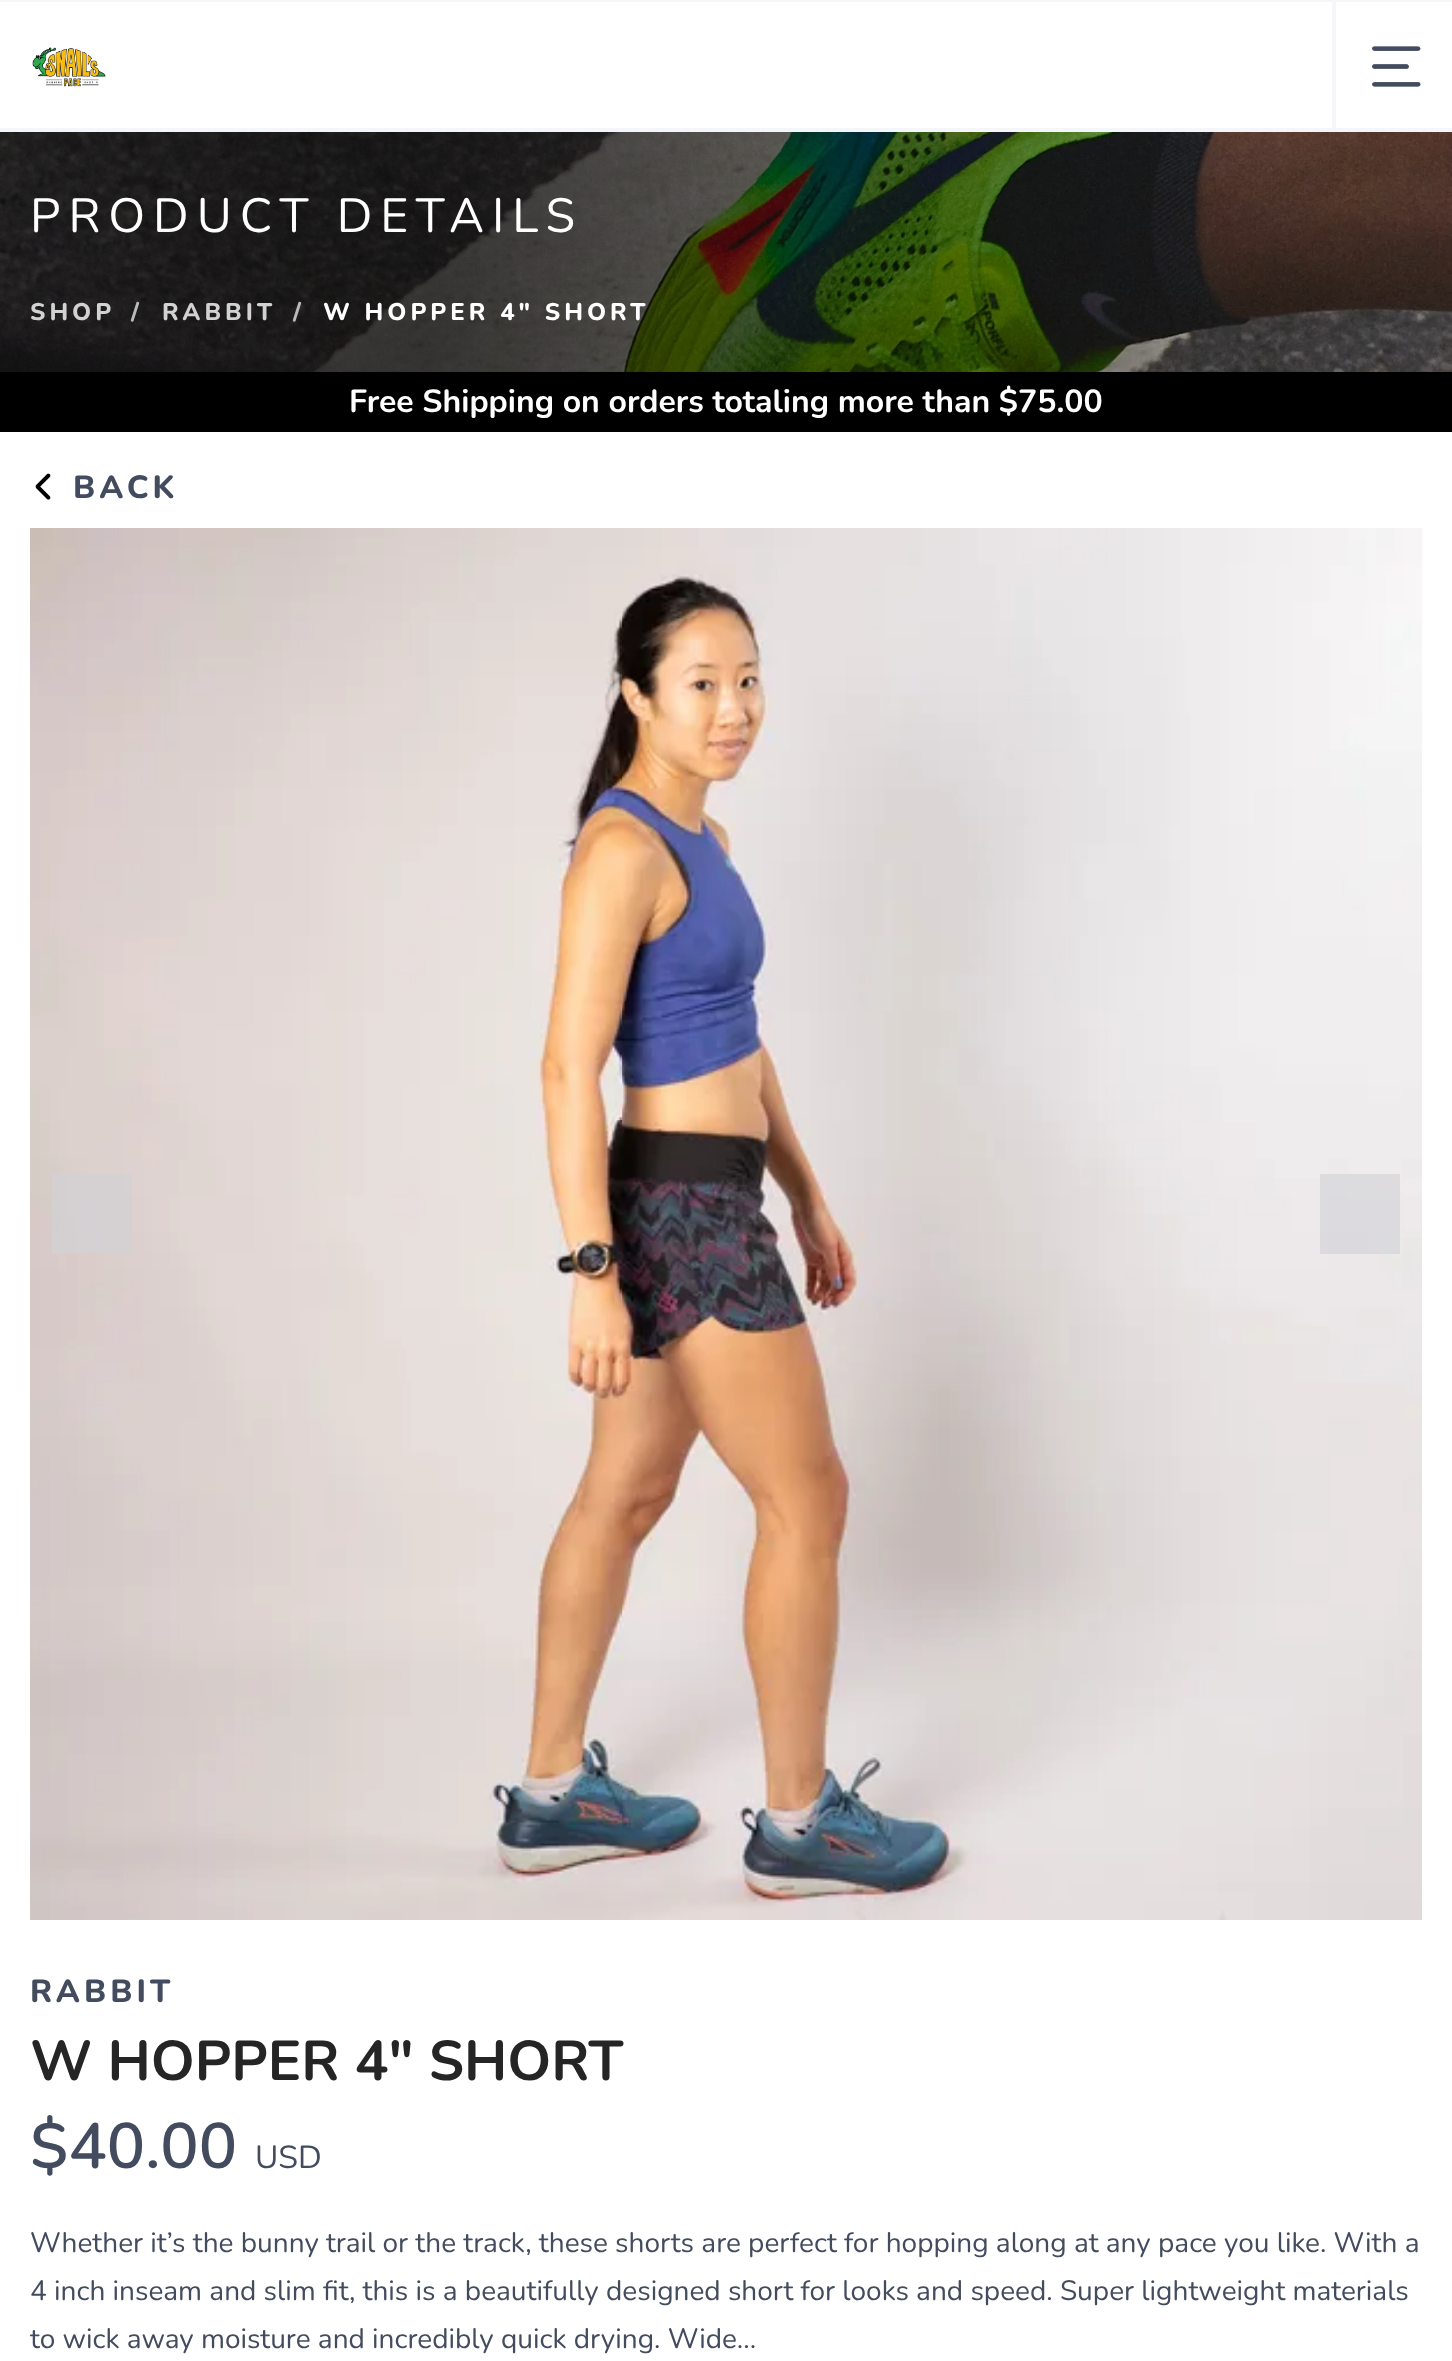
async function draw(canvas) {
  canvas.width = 1452;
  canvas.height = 2361;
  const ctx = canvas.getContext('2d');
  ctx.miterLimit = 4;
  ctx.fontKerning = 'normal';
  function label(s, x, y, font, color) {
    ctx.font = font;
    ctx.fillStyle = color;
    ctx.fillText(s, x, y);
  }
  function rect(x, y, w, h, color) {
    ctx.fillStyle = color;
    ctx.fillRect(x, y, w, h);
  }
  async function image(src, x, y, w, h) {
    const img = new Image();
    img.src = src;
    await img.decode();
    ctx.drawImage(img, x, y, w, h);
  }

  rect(0, 0, 1452, 2361, '#fff');
  rect(0, 0, 1452, 2, '#f5f6fa');
  rect(0, 128, 1452, 4, '#f5f6fa');
  await image('assets/img1.png', 32, 47, 74, 40);
  rect(1332, 2, 4, 126, '#f5f6fa');
  await image('assets/img2.png', 1372, 46, 49, 41);
  await image('assets/img3.png', 0, 132, 1452, 240);
  ctx.letterSpacing = '8px';
  label('PRODUCT DETAILS', 30, 232, '48px Nunito', '#fff');
  ctx.letterSpacing = '4px';
  label('SHOP', 30, 320, '800 24px Nunito', '#d2d2d2');
  label('/', 131, 320, '800 24px Nunito', '#bbb');
  label('RABBIT', 162, 320, '800 24px Nunito', '#d2d2d2');
  label('/', 293, 320, '800 24px Nunito', '#bbb');
  label('W HOPPER 4" SHORT', 323, 320, '800 24px Nunito', '#fff');
  rect(0, 372, 1452, 60, '#000');
  ctx.letterSpacing = '0px';
  label('Free Shipping on orders totaling more than $75.00', 349, 412, 'bold 32px Nunito', '#fff');
  await image('assets/img4.png', 35, 473, 16, 27);
  ctx.letterSpacing = '4px';
  label('BACK', 73, 498, '800 32px Nunito', '#434c5e');
  await image('assets/img5.png', 30, 528, 1392, 1392);
  rect(52, 1174, 80, 80, '#d2d2d7a3');
  rect(1320, 1174, 80, 80, '#d2d2d7a3');
  label('RABBIT', 30, 2002, '800 32px Nunito', '#434c5e');
  ctx.letterSpacing = '0px';
  label('W HOPPER 4" SHORT', 30, 2080, 'bold 56px Nunito', '#252525');
  label('$40.00', 30, 2168, '600 64px Nunito', '#434c5e');
  label('USD', 255, 2168, '32px Nunito', '#434c5e');
  label('Whether it’s the bunny trail or the track, these shorts are perfect for hopping along at any pace you like. With a', 30, 2252, '28px Nunito', '#434c5e');
  label('4 inch inseam and slim fit, this is a beautifully designed short for looks and speed. Super lightweight materials', 30, 2300, '28px Nunito', '#434c5e');
  label('to wick away moisture and incredibly quick drying. Wide...', 30, 2348, '28px Nunito', '#434c5e');
}

draw(document.querySelector('canvas'));
